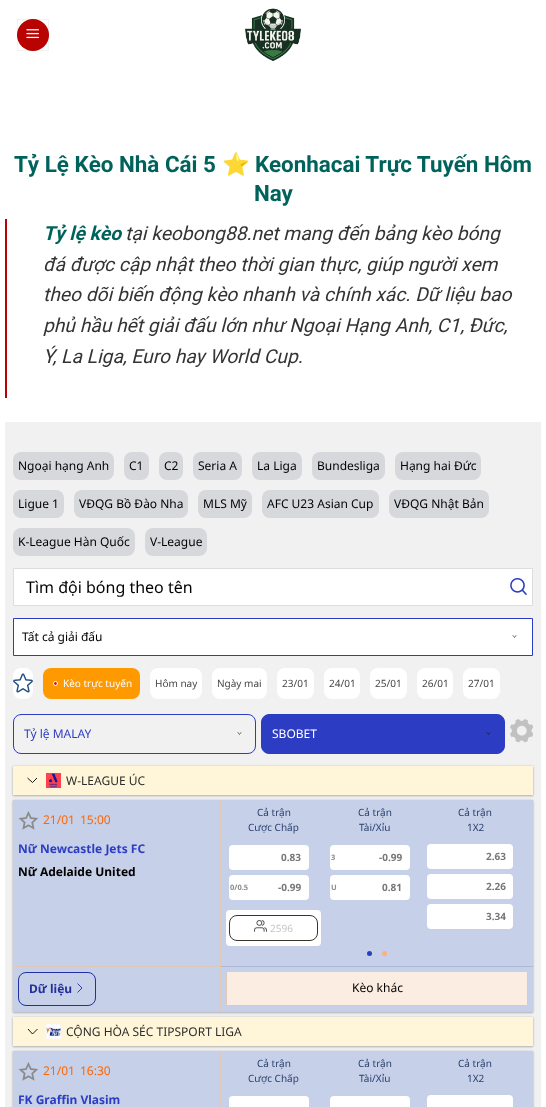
async function draw(canvas) {
  canvas.width = 546;
  canvas.height = 1107;
  const ctx = canvas.getContext('2d');
  ctx.miterLimit = 4;
  ctx.fontKerning = 'normal';
  function label(s, x, y, font, color) {
    ctx.font = font;
    ctx.fillStyle = color;
    ctx.fillText(s, x, y);
  }
  function rect(x, y, w, h, color) {
    ctx.fillStyle = color;
    ctx.fillRect(x, y, w, h);
  }
  function roundedRect(x, y, w, h, r, color) {
    ctx.fillStyle = color;
    ctx.beginPath();
    ctx.roundRect(x, y, w, h, r);
    ctx.fill();
  }
  async function image(src, x, y, w, h) {
    const img = new Image();
    img.src = src;
    await img.decode();
    ctx.drawImage(img, x, y, w, h);
  }
  let path;

  rect(0, 0, 546, 1107, '#fff');
  ctx.fillStyle = '#b90202';
  ctx.beginPath();
  ctx.arc(33, 35, 16, 0, 2 * Math.PI);
  ctx.fill();
  ctx.strokeStyle = '#0000000d';
  ctx.strokeRect(17.5, 19.5, 31, 31);
  await image('assets/img1.png', 26, 29, 13, 10);
  await image('assets/img2.png', 245, 8, 56, 53);
  label('Tỷ Lệ Kèo Nhà Cái 5', 14, 172, 'bold 22.4px Roboto', '#00635b');
  label('⭐️', 222, 172, 'bold 22.4px Noto Color Emoji', '#00635b');
  label('Keonhacai Trực Tuyến Hôm', 255, 172, 'bold 22.4px Roboto', '#00635b');
  label('Nay', 254, 201, 'bold 22.4px Roboto', '#00635b');
  rect(5, 219, 2, 179, '#b90202');
  label('Tỷ lệ kèo', 43, 240, 'italic bold 19.2px Roboto', '#00635b');
  label('tại keobong88.net mang đến bảng kèo bóng', 125, 240, 'italic 19.2px Roboto', '#333');
  label('đá được cập nhật theo thời gian thực, giúp người xem', 43, 271, 'italic 19.2px Roboto', '#333');
  label('theo dõi biến động kèo nhanh và chính xác. Dữ liệu bao', 43, 301, 'italic 19.2px Roboto', '#333');
  label('phủ hầu hết giải đấu lớn như Ngoại Hạng Anh, C1, Đức,', 43, 332, 'italic 19.2px Roboto', '#333');
  label('Ý, La Liga, Euro hay World Cup.', 43, 363, 'italic 19.2px Roboto', '#333');
  rect(5, 422, 536, 685, '#f1f1f1');
  roundedRect(13, 452, 101, 28, 8, '#d6d8dc');
  label('Ngoại hạng Anh', 18, 470, '12px Noto Sans', '#000');
  roundedRect(124, 452, 25, 28, 8, '#d6d8dc');
  label('C1', 129, 470, '12px Noto Sans', '#000');
  roundedRect(159, 452, 24, 28, 8, '#d6d8dc');
  label('C2', 164, 470, '12px Noto Sans', '#000');
  roundedRect(193, 452, 49, 28, 8, '#d6d8dc');
  label('Seria A', 198, 470, '12px Noto Sans', '#000');
  roundedRect(252, 452, 50, 28, 8, '#d6d8dc');
  label('La Liga', 257, 470, '12px Noto Sans', '#000');
  roundedRect(312, 452, 73, 28, 8, '#d6d8dc');
  label('Bundesliga', 317, 470, '12px Noto Sans', '#000');
  roundedRect(395, 452, 86, 28, 8, '#d6d8dc');
  label('Hạng hai Đức', 400, 470, '12px Noto Sans', '#000');
  roundedRect(13, 490, 51, 28, 8, '#d6d8dc');
  label('Ligue 1', 18, 508, '12px Noto Sans', '#000');
  roundedRect(74, 490, 114, 28, 8, '#d6d8dc');
  label('VĐQG Bồ Đào Nha', 79, 508, '12px Noto Sans', '#000');
  roundedRect(198, 490, 54, 28, 8, '#d6d8dc');
  label('MLS Mỹ', 203, 508, '12px Noto Sans', '#000');
  roundedRect(262, 490, 117, 28, 8, '#d6d8dc');
  label('AFC U23 Asian Cup', 267, 508, '12px Noto Sans', '#000');
  roundedRect(389, 490, 100, 28, 8, '#d6d8dc');
  label('VĐQG Nhật Bản', 394, 508, '12px Noto Sans', '#000');
  roundedRect(13, 528, 122, 28, 8, '#d6d8dc');
  label('K-League Hàn Quốc', 18, 546, '12px Noto Sans', '#000');
  roundedRect(145, 528, 62, 28, 8, '#d6d8dc');
  label('V-League', 150, 546, '12px Noto Sans', '#000');
  ctx.fillStyle = '#fff';
  ctx.beginPath();
  ctx.rect(13.5, 568.5, 519, 37);
  ctx.fill();
  ctx.strokeStyle = '#ddd';
  ctx.stroke();
  label('Tìm đội bóng theo tên', 26, 593, '16px Noto Sans', '#000');
  await image('assets/img3.png', 510, 578, 17, 17);
  ctx.fillStyle = '#fff';
  ctx.beginPath();
  ctx.rect(13.5, 618.5, 519, 37);
  ctx.fill();
  ctx.strokeStyle = '#2c3cc3';
  ctx.stroke();
  label('Tất cả giải đấu', 22, 641, '12px Noto Sans', '#000');
  path = new Path2D('M513 635.5L514.5 637.5L516 635.5');
  ctx.strokeStyle = '#171717';
  ctx.lineWidth = 0.6;
  ctx.lineCap = 'round';
  ctx.lineJoin = 'round';
  ctx.stroke(path);
  roundedRect(13, 668, 20, 31, 8, '#fff');
  await image('assets/img4.png', 13, 673, 20, 20);
  roundedRect(43, 668, 97, 31, 8, '#f90');
  ctx.fillStyle = '#ff0a09';
  ctx.beginPath();
  ctx.arc(55.5, 683.5, 2, 0, 2 * Math.PI);
  ctx.fill();
  ctx.strokeStyle = '#fff';
  ctx.lineWidth = 1;
  ctx.stroke();
  label('Kèo trực tuyến', 63, 687, '10px Noto Sans', '#fff');
  roundedRect(150, 668, 52, 31, 8, '#fff');
  label('Hôm nay', 155, 687, '10px Noto Sans', '#464646');
  roundedRect(212, 668, 55, 31, 8, '#fff');
  label('Ngày mai', 217, 687, '10px Noto Sans', '#464646');
  roundedRect(277, 668, 37, 31, 8, '#fff');
  label('23/01', 282, 687, '10px Noto Sans', '#464646');
  roundedRect(324, 668, 36, 31, 8, '#fff');
  label('24/01', 329, 687, '10px Noto Sans', '#464646');
  roundedRect(370, 668, 37, 31, 8, '#fff');
  label('25/01', 375, 687, '10px Noto Sans', '#464646');
  roundedRect(417, 668, 36, 31, 8, '#fff');
  label('26/01', 422, 687, '10px Noto Sans', '#464646');
  roundedRect(463, 668, 37, 31, 8, '#fff');
  label('27/01', 468, 687, '10px Noto Sans', '#464646');
  ctx.beginPath();
  ctx.roundRect(13.5, 714.5, 242, 39, 7.5);
  ctx.strokeStyle = '#2c3cc3';
  ctx.lineJoin = 'miter';
  ctx.stroke();
  label('Tỷ lệ MALAY', 24, 738, '12px Noto Sans', '#2c3cc3');
  path = new Path2D('M238 732.5L239.5 734.5L241 732.5');
  ctx.strokeStyle = '#171717';
  ctx.lineWidth = 0.6;
  ctx.lineJoin = 'round';
  ctx.stroke(path);
  ctx.beginPath();
  ctx.roundRect(261.5, 714.5, 243, 39, 7.5);
  ctx.fill();
  ctx.strokeStyle = '#2c3cc3';
  ctx.lineWidth = 1;
  ctx.lineJoin = 'miter';
  ctx.stroke();
  label('SBOBET', 272, 738, '12px Noto Sans', '#fff');
  path = new Path2D('M487 732.5L488.5 734.5L490 732.5');
  ctx.strokeStyle = '#171717';
  ctx.lineWidth = 0.6;
  ctx.lineJoin = 'round';
  ctx.stroke(path);
  await image('assets/img5.png', 510, 719, 23, 24);
  ctx.fillStyle = '#0000003d';
  ctx.filter = 'blur(1px)';
  ctx.beginPath();
  ctx.rect(13, 767, 520, 29);
  ctx.fill();
  ctx.filter = 'none';
  ctx.fillStyle = '#0000001f';
  ctx.filter = 'blur(1px)';
  ctx.beginPath();
  ctx.rect(13, 766, 520, 29);
  ctx.fill();
  ctx.filter = 'none';
  rect(13, 766, 520, 29, '#fff6d9');
  path = new Path2D('M27.5 778L32.5 782.5L37 778');
  ctx.strokeStyle = '#000';
  ctx.lineWidth = 0.9;
  ctx.lineCap = 'butt';
  ctx.lineJoin = 'miter';
  ctx.stroke(path);
  await image('assets/img6.png', 46, 773, 15, 15);
  label('W-LEAGUE ÚC', 66, 785, '12px Noto Sans', '#2d2d2d');
  ctx.fillStyle = '#0000003d';
  ctx.filter = 'blur(1px)';
  ctx.beginPath();
  ctx.rect(13, 801, 520, 212);
  ctx.fill();
  ctx.filter = 'none';
  ctx.fillStyle = '#0000001f';
  ctx.filter = 'blur(1px)';
  ctx.beginPath();
  ctx.rect(13, 800, 520, 212);
  ctx.fill();
  ctx.filter = 'none';
  rect(13, 800, 520, 211, '#c6d0e8');
  rect(220, 800, 1, 212, '#dfc8b8');
  rect(13, 966, 208, 1, '#dfc8b8');
  await image('assets/img7.png', 18, 811, 20, 19);
  label('21/01', 43, 824, '12px Noto Sans', '#f60');
  label('15:00', 80, 824, '12px Noto Sans', '#f60');
  label('Nữ Newcastle Jets FC', 18, 853, 'bold 12px Noto Sans', '#2c3cc3');
  label('Nữ Adelaide United', 18, 876, 'bold 12px Noto Sans', '#000');
  rect(221, 966, 312, 1, '#acb8d4');
  label('Cả trận', 257, 816, '10px Noto Sans', '#2b3f6d');
  label('Cược Chấp', 248, 831, '10px Noto Sans', '#2b3f6d');
  roundedRect(229, 845, 80, 25, 4, '#fff');
  label('0.83', 281, 861, 'bold 10px Noto Sans', '#777');
  roundedRect(229, 875, 80, 25, 4, '#fff');
  label('0/0.5', 230, 890, 'bold 7.5px Noto Sans', '#8b8b8b');
  label('-0.99', 278, 891, 'bold 10px Noto Sans', '#777');
  roundedRect(226, 910, 95, 36, 4, '#fff');
  ctx.beginPath();
  ctx.roundRect(229.5, 915.5, 88, 25, 7.5);
  ctx.strokeStyle = '#393729';
  ctx.lineWidth = 1;
  ctx.stroke();
  await image('assets/img8.png', 254, 920, 13, 12);
  label('2596', 270, 932, '10px Noto Sans', '#c5c5c5');
  label('Cả trận', 358, 816, '10px Noto Sans', '#2b3f6d');
  label('Tài/Xỉu', 359, 831, '10px Noto Sans', '#2b3f6d');
  roundedRect(330, 845, 80, 25, 4, '#fff');
  label('3', 331, 860, 'bold 7.5px Noto Sans', '#8b8b8b');
  label('-0.99', 379, 861, 'bold 10px Noto Sans', '#777');
  roundedRect(330, 875, 80, 25, 4, '#fff');
  label('U', 331, 890, 'bold 7.5px Noto Sans', '#8b8b8b');
  label('0.81', 382, 891, 'bold 10px Noto Sans', '#777');
  label('Cả trận', 458, 816, '10px Noto Sans', '#2b3f6d');
  label('1X2', 467, 831, '10px Noto Sans', '#2b3f6d');
  roundedRect(427, 844, 86, 25, 4, '#fff');
  label('2.63', 486, 860, 'bold 10px Noto Sans', '#777');
  roundedRect(427, 874, 86, 25, 4, '#fff');
  label('2.26', 486, 890, 'bold 10px Noto Sans', '#777');
  roundedRect(427, 904, 86, 25, 4, '#fff');
  label('3.34', 486, 920, 'bold 10px Noto Sans', '#777');
  ctx.fillStyle = '#2c3cc3';
  ctx.beginPath();
  ctx.arc(369.5, 953.5, 2.5, 0, 2 * Math.PI);
  ctx.fill();
  ctx.fillStyle = '#ffaf7b';
  ctx.beginPath();
  ctx.arc(384.5, 953.5, 2.5, 0, 2 * Math.PI);
  ctx.fill();
  rect(13, 1011, 520, 1, '#dfc8b8');
  ctx.beginPath();
  ctx.roundRect(18.5, 972.5, 77, 33, 7.5);
  ctx.strokeStyle = '#23309d';
  ctx.stroke();
  label('Dữ liệu', 29, 993, 'bold 12px Noto Sans', '#23309d');
  path = new Path2D('M77.5 992.5L82 988L77.5 983.5');
  ctx.lineWidth = 0.9;
  ctx.stroke(path);
  ctx.fillStyle = '#fbede2';
  path = new Path2D('M228 972H526C527 972 527 973 527 974V1004C527 1005 527 1005 526 1005H228C227 1005 227 1005 227 1004V974C227 973 227 972 228 972Z');
  ctx.fill(path);
  rect(527, 973, 1, 32, '#dfc8b8');
  rect(227, 1005, 300, 1, '#dfc8b8');
  rect(226, 973, 1, 32, '#dfc8b8');
  label('Kèo khác', 352, 992, '12px Noto Sans', '#000');
  ctx.fillStyle = '#0000003d';
  ctx.filter = 'blur(1px)';
  ctx.beginPath();
  ctx.rect(13, 1018, 520, 29);
  ctx.fill();
  ctx.filter = 'none';
  ctx.fillStyle = '#0000001f';
  ctx.filter = 'blur(1px)';
  ctx.beginPath();
  ctx.rect(13, 1017, 520, 29);
  ctx.fill();
  ctx.filter = 'none';
  rect(13, 1017, 520, 29, '#fff6d9');
  path = new Path2D('M28 1029L32.5 1034L37.5 1029');
  ctx.strokeStyle = '#000';
  ctx.stroke(path);
  await image('assets/img9.png', 46, 1024, 15, 15);
  label('CỘNG HÒA SÉC TIPSPORT LIGA', 66, 1036, '12px Noto Sans', '#2d2d2d');
  ctx.fillStyle = '#0000003d';
  ctx.filter = 'blur(1px)';
  ctx.beginPath();
  ctx.rect(13, 1052, 520, 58);
  ctx.fill();
  ctx.filter = 'none';
  ctx.fillStyle = '#0000001f';
  ctx.filter = 'blur(1px)';
  ctx.beginPath();
  ctx.rect(13, 1051, 520, 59);
  ctx.fill();
  ctx.filter = 'none';
  rect(13, 1051, 520, 56, '#c6d0e8');
  rect(220, 1051, 1, 56, '#dfc8b8');
  await image('assets/img7.png', 18, 1062, 20, 19);
  label('21/01', 43, 1075, '12px Noto Sans', '#f60');
  label('16:30', 80, 1075, '12px Noto Sans', '#f60');
  label('FK Graffin Vlasim', 18, 1104, 'bold 12px Noto Sans', '#2c3cc3');
  label('Cả trận', 257, 1067, '10px Noto Sans', '#2b3f6d');
  label('Cược Chấp', 248, 1082, '10px Noto Sans', '#2b3f6d');
  roundedRect(229, 1096, 80, 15, 4, '#fff');
  label('Cả trận', 358, 1067, '10px Noto Sans', '#2b3f6d');
  label('Tài/Xỉu', 359, 1082, '10px Noto Sans', '#2b3f6d');
  roundedRect(330, 1096, 80, 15, 4, '#fff');
  label('Cả trận', 458, 1067, '10px Noto Sans', '#2b3f6d');
  label('1X2', 467, 1082, '10px Noto Sans', '#2b3f6d');
  roundedRect(427, 1095, 86, 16, 4, '#fff');
}

draw(document.querySelector('canvas'));
